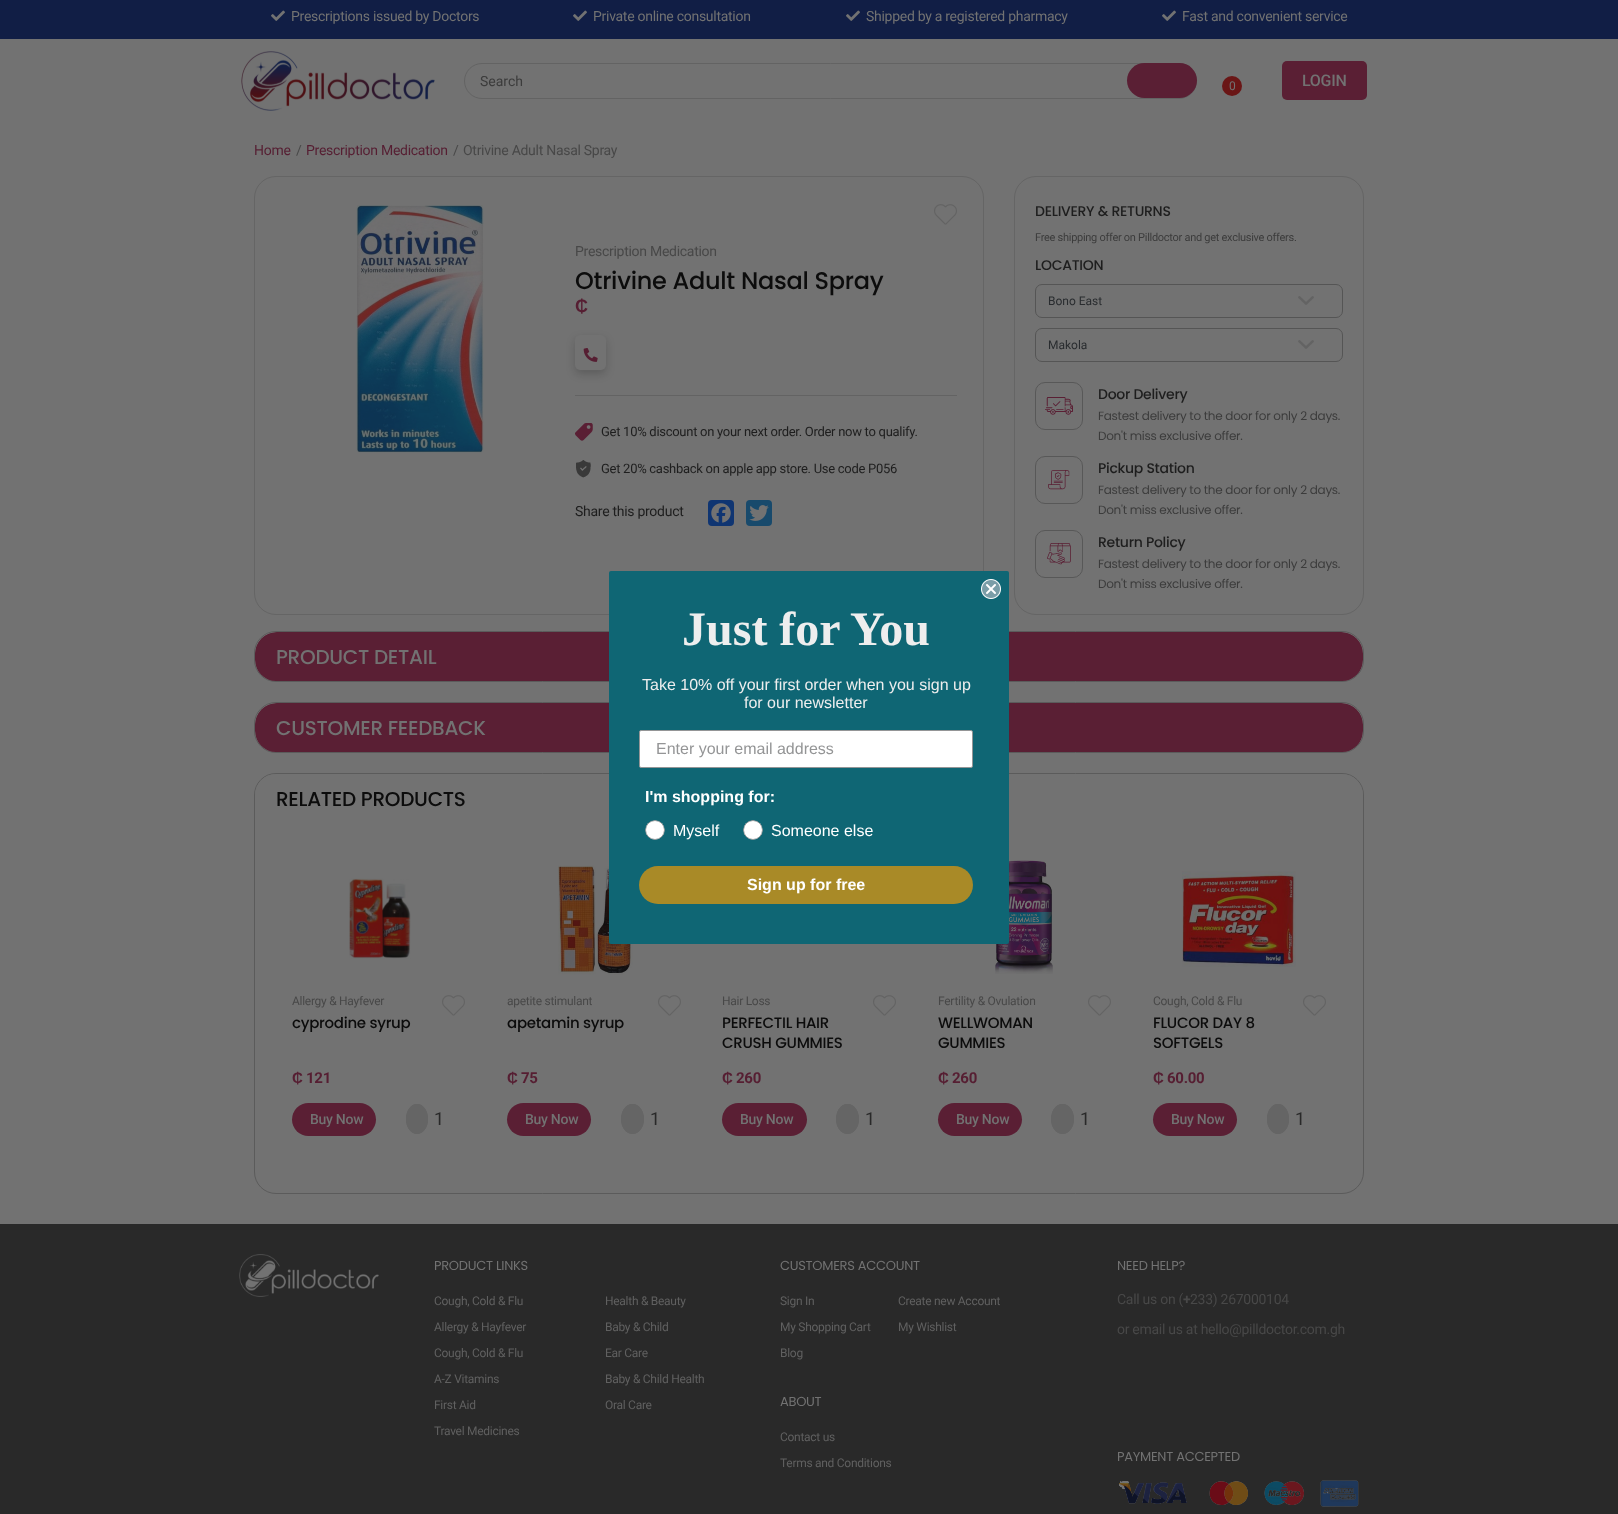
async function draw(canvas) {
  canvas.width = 1618;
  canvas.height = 1514;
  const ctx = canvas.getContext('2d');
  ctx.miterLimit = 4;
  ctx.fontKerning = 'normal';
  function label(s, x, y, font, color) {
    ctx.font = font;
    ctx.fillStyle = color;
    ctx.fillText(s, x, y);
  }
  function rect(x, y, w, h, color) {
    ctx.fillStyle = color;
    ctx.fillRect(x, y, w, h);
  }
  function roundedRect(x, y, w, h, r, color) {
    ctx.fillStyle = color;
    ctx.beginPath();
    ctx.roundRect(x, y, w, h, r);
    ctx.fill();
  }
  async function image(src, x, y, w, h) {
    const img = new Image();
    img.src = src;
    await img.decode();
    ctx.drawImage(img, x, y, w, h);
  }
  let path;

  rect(0, 0, 1618, 1514, '#727272');
  rect(0, 0, 1618, 39, '#111e45');
  await image('assets/img1.png', 271, 10, 14, 11);
  ctx.letterSpacing = '-0.28px';
  label('Prescriptions issued by Doctors', 291, 21, '14px Roboto', '#727272');
  await image('assets/img1.png', 573, 10, 14, 11);
  label('Private online consultation', 593, 21, '14px Roboto', '#727272');
  await image('assets/img1.png', 846, 10, 14, 11);
  label('Shipped by a registered pharmacy', 866, 21, '14px Roboto', '#727272');
  await image('assets/img1.png', 1162, 10, 14, 11);
  label('Fast and convenient service', 1182, 21, '14px Roboto', '#727272');
  await image('assets/img2.png', 241, 51, 194, 60);
  ctx.beginPath();
  ctx.roundRect(464.5, 63.5, 732, 35, 17.5);
  ctx.strokeStyle = '#636363';
  ctx.stroke();
  ctx.letterSpacing = '0px';
  label('Search', 480, 86, '14px Roboto', '#3c3c3c');
  roundedRect(1127, 63, 70, 35, 17.5, '#5a1f34');
  ctx.fillStyle = '#6a1616';
  ctx.beginPath();
  ctx.arc(1232, 86, 10, 0, 2 * Math.PI);
  ctx.fill();
  ctx.letterSpacing = '-0.28px';
  label('0', 1229, 90, '12px Roboto', '#727272');
  roundedRect(1282, 61, 85, 39, 5, '#5a1f34');
  label('LOGIN', 1302, 86, '500 16px Roboto', '#727272');
  label('Home', 254, 155, '14px Roboto', '#561e32');
  label('/', 296, 155, '14px Roboto', '#484848');
  label('Prescription Medication', 306, 155, '14px Roboto', '#561e32');
  label('/', 453, 155, '14px Roboto', '#484848');
  label('Otrivine Adult Nasal Spray', 463, 155, '14px Roboto', '#484848');
  ctx.beginPath();
  ctx.roundRect(254.5, 176.5, 729, 438, 21.5);
  ctx.strokeStyle = '#656565';
  ctx.stroke();
  await image('assets/img3.png', 356, 205, 128, 248);
  await image('assets/img4.png', 934, 204, 23, 21);
  label('Prescription Medication', 575, 256, '14px Roboto', '#484848');
  label('Otrivine Adult Nasal Spray', 575, 289, '500 24px Poppins', '#0c0c0c');
  label('₵', 575, 312, 'bold 18px Liberation Sans', '#561e32');
  ctx.fillStyle = '#0c0c0c33';
  ctx.filter = 'blur(4px)';
  ctx.beginPath();
  ctx.roundRect(575, 339, 31, 35, 5);
  ctx.fill();
  ctx.filter = 'none';
  roundedRect(575, 335, 31, 35, 5, '#727272');
  await image('assets/img5.png', 583, 348, 15, 14);
  rect(575, 395, 382, 1, '#636363');
  await image('assets/img6.png', 575, 423, 18, 18);
  label('Get 10% discount on your next order. Order now to qualify.', 601, 436, '13px Roboto', '#1e1e1e');
  await image('assets/img7.png', 576, 460, 15, 18);
  label('Get 20% cashback on apple app store. Use code P056', 601, 473, '13px Roboto', '#1e1e1e');
  label('Share this product', 575, 516, '14px Roboto', '#1e1e1e');
  roundedRect(708, 500, 26, 26, 4, '#0f3572');
  await image('assets/img8.png', 711, 503, 20, 20);
  roundedRect(746, 500, 26, 26, 4, '#184a6c');
  await image('assets/img9.png', 749, 505, 20, 16);
  ctx.beginPath();
  ctx.roundRect(1014.5, 176.5, 349, 438, 21.5);
  ctx.stroke();
  label('DELIVERY & RETURNS', 1035, 216, '500 14px Poppins', '#1e1e1e');
  label('Free shipping offer on Pilldoctor and get exclusive offers.', 1035, 241, '11px Roboto', '#3c3c3c');
  label('LOCATION', 1035, 270, '500 14px Poppins', '#1e1e1e');
  await image('assets/img10.png', 1298, 296, 16, 9);
  ctx.beginPath();
  ctx.roundRect(1035.5, 284.5, 307, 33, 6.5);
  ctx.strokeStyle = '#555';
  ctx.stroke();
  ctx.letterSpacing = '0px';
  label('Bono East', 1048, 305, '12px Roboto', '#292c2f');
  await image('assets/img10.png', 1298, 340, 16, 9);
  ctx.beginPath();
  ctx.roundRect(1035.5, 328.5, 307, 33, 6.5);
  ctx.stroke();
  label('Makola', 1048, 349, '12px Roboto', '#292c2f');
  ctx.beginPath();
  ctx.roundRect(1035.5, 382.5, 47, 47, 9.5);
  ctx.strokeStyle = '#585858';
  ctx.stroke();
  await image('assets/img11.png', 1045, 397, 28, 18);
  ctx.letterSpacing = '-0.28px';
  label('Door Delivery', 1098, 399, '500 14px Poppins', '#1e1e1e');
  label('Fastest delivery to the door for only 2 days.', 1098, 420, '12px Poppins', '#3c3c3c');
  label('Don\'t miss exclusive offer.', 1098, 440, '12px Poppins', '#3c3c3c');
  ctx.beginPath();
  ctx.roundRect(1035.5, 456.5, 47, 47, 9.5);
  ctx.stroke();
  await image('assets/img12.png', 1048, 470, 22, 20);
  label('Pickup Station', 1098, 473, '500 14px Poppins', '#1e1e1e');
  label('Fastest delivery to the door for only 2 days.', 1098, 494, '12px Poppins', '#3c3c3c');
  label('Don\'t miss exclusive offer.', 1098, 514, '12px Poppins', '#3c3c3c');
  ctx.beginPath();
  ctx.roundRect(1035.5, 530.5, 47, 47, 9.5);
  ctx.stroke();
  await image('assets/img13.png', 1047, 543, 24, 22);
  label('Return Policy', 1098, 547, '500 14px Poppins', '#1e1e1e');
  label('Fastest delivery to the door for only 2 days.', 1098, 568, '12px Poppins', '#3c3c3c');
  label('Don\'t miss exclusive offer.', 1098, 588, '12px Poppins', '#3c3c3c');
  ctx.beginPath();
  ctx.roundRect(254.5, 631.5, 1109, 50, 21.5);
  ctx.strokeStyle = '#5b5b5b';
  ctx.stroke();
  roundedRect(255, 632, 1108, 49, 21, '#727272');
  ctx.save();
  ctx.beginPath();
  ctx.roundRect(255, 632, 1108, 49, 21);
  ctx.clip();
  roundedRect(255, 632, 1108, 50, 22, '#5a1f34');
  ctx.restore();
  label('PRODUCT DETAIL', 276, 664, '500 20px Poppins', '#727272');
  ctx.beginPath();
  ctx.roundRect(254.5, 702.5, 1109, 50, 21.5);
  ctx.stroke();
  roundedRect(255, 703, 1108, 49, 21, '#727272');
  ctx.save();
  ctx.beginPath();
  ctx.roundRect(255, 703, 1108, 49, 21);
  ctx.clip();
  roundedRect(255, 703, 1108, 50, 22, '#5a1f34');
  ctx.restore();
  label('CUSTOMER FEEDBACK', 276, 735, '500 20px Poppins', '#727272');
  ctx.beginPath();
  ctx.roundRect(254.5, 773.5, 1109, 420, 21.5);
  ctx.stroke();
  ctx.beginPath();
  ctx.roundRect(255, 774, 1108, 50, [21, 21, 0, 0]);
  ctx.fill();
  label('RELATED PRODUCTS', 276, 806, '500 20px Poppins', '#0c0c0c');
  await image('assets/img14.png', 349, 878, 62, 81);
  label('Allergy & Hayfever', 292, 1005, '12px Roboto', '#484848');
  label('cyprodine syrup', 292, 1028, '500 15px Poppins', '#0c0c0c');
  await image('assets/img4.png', 442, 995, 23, 21);
  label('₵', 292, 1083, 'bold 15px Liberation Sans', '#561e32');
  label('121', 306, 1083, 'bold 15px Roboto', '#561e32');
  roundedRect(292, 1103, 84, 33, 16.5, '#5a1f34');
  label('Buy Now', 310, 1124, '500 14px Roboto', '#727272');
  ctx.fillStyle = '#656565';
  ctx.beginPath();
  ctx.ellipse(417, 1119, 11, 15, 0, 0, 2 * Math.PI);
  ctx.fill();
  path = new Path2D('M417 1104.5C431 1104.5 431 1133.5 417 1133.5C403 1133.5 403 1104.5 417 1104.5Z');
  ctx.strokeStyle = '#656565';
  ctx.stroke(path);
  ctx.letterSpacing = '0px';
  label('1', 434, 1125, '18px Roboto', '#292929');
  await image('assets/img15.png', 558, 865, 75, 110);
  ctx.letterSpacing = '-0.28px';
  label('apetite stimulant', 507, 1005, '12px Roboto', '#484848');
  label('apetamin syrup', 507, 1028, '500 15px Poppins', '#0c0c0c');
  await image('assets/img4.png', 658, 995, 23, 21);
  label('₵', 507, 1083, 'bold 15px Liberation Sans', '#561e32');
  label('75', 521, 1083, 'bold 15px Roboto', '#561e32');
  roundedRect(507, 1103, 84, 33, 16.5, '#5a1f34');
  label('Buy Now', 525, 1124, '500 14px Roboto', '#727272');
  ctx.fillStyle = '#656565';
  ctx.beginPath();
  ctx.ellipse(632.5, 1119, 11.5, 15, 0, 0, 2 * Math.PI);
  ctx.fill();
  path = new Path2D('M632.5 1104.5C647 1104.5 647 1133.5 632.5 1133.5C618 1133.5 618 1104.5 632.5 1104.5Z');
  ctx.stroke(path);
  ctx.letterSpacing = '0px';
  label('1', 650, 1125, '18px Roboto', '#292929');
  ctx.letterSpacing = '-0.28px';
  label('Hair Loss', 722, 1005, '12px Roboto', '#484848');
  label('PERFECTIL HAIR', 722, 1028, '500 15px Poppins', '#0c0c0c');
  label('CRUSH GUMMIES', 722, 1048, '500 15px Poppins', '#0c0c0c');
  await image('assets/img4.png', 873, 995, 23, 21);
  label('₵', 722, 1083, 'bold 15px Liberation Sans', '#561e32');
  label('260', 736, 1083, 'bold 15px Roboto', '#561e32');
  roundedRect(722, 1103, 85, 33, 16.5, '#5a1f34');
  label('Buy Now', 740, 1124, '500 14px Roboto', '#727272');
  ctx.fillStyle = '#656565';
  ctx.beginPath();
  ctx.ellipse(847.5, 1119, 11.5, 15, 0, 0, 2 * Math.PI);
  ctx.fill();
  path = new Path2D('M847.5 1104.5C862 1104.5 862 1133.5 847.5 1133.5C833 1133.5 833 1104.5 847.5 1104.5Z');
  ctx.stroke(path);
  ctx.letterSpacing = '0px';
  label('1', 865, 1125, '18px Roboto', '#292929');
  await image('assets/img16.png', 995, 860, 58, 114);
  ctx.letterSpacing = '-0.28px';
  label('Fertility & Ovulation', 938, 1005, '12px Roboto', '#484848');
  label('WELLWOMAN', 938, 1028, '500 15px Poppins', '#0c0c0c');
  label('GUMMIES', 938, 1048, '500 15px Poppins', '#0c0c0c');
  await image('assets/img4.png', 1088, 995, 23, 21);
  label('₵', 938, 1083, 'bold 15px Liberation Sans', '#561e32');
  label('260', 952, 1083, 'bold 15px Roboto', '#561e32');
  roundedRect(938, 1103, 84, 33, 16.5, '#5a1f34');
  label('Buy Now', 956, 1124, '500 14px Roboto', '#727272');
  ctx.fillStyle = '#656565';
  ctx.beginPath();
  ctx.ellipse(1062.5, 1119, 11.5, 15, 0, 0, 2 * Math.PI);
  ctx.fill();
  path = new Path2D('M1062.5 1104.5C1077 1104.5 1077 1133.5 1062.5 1133.5C1048 1133.5 1048 1104.5 1062.5 1104.5Z');
  ctx.stroke(path);
  ctx.letterSpacing = '0px';
  label('1', 1080, 1125, '18px Roboto', '#292929');
  await image('assets/img17.png', 1182, 871, 114, 96);
  ctx.letterSpacing = '-0.28px';
  label('Cough, Cold & Flu', 1153, 1005, '12px Roboto', '#484848');
  label('FLUCOR DAY 8', 1153, 1028, '500 15px Poppins', '#0c0c0c');
  label('SOFTGELS', 1153, 1048, '500 15px Poppins', '#0c0c0c');
  await image('assets/img4.png', 1303, 995, 23, 21);
  label('₵', 1153, 1083, 'bold 15px Liberation Sans', '#561e32');
  label('60.00', 1167, 1083, 'bold 15px Roboto', '#561e32');
  roundedRect(1153, 1103, 84, 33, 16.5, '#5a1f34');
  label('Buy Now', 1171, 1124, '500 14px Roboto', '#727272');
  ctx.fillStyle = '#656565';
  ctx.beginPath();
  ctx.ellipse(1278, 1119, 11, 15, 0, 0, 2 * Math.PI);
  ctx.fill();
  path = new Path2D('M1278 1104.5C1292 1104.5 1292 1133.5 1278 1133.5C1264 1133.5 1264 1104.5 1278 1104.5Z');
  ctx.stroke(path);
  ctx.letterSpacing = '0px';
  label('1', 1295, 1125, '18px Roboto', '#292929');
  roundedRect(609, 571, 400, 373, 2, '#0f6674');
  await image('assets/img18.png', 981, 579, 20, 20);
  label('Just for You', 682, 645, 'bold 48px Liberation Serif', '#eee');
  label('Take 10% off your first order when you sign up', 642, 690, '16px Liberation Sans', '#eee');
  label('for our newsletter', 744, 708, '16px Liberation Sans', '#eee');
  ctx.fillStyle = '#fff';
  ctx.beginPath();
  ctx.roundRect(639.5, 730.5, 333, 37, 1.5);
  ctx.fill();
  ctx.strokeStyle = '#949596';
  ctx.stroke();
  label('Enter your email address', 656, 754, '16px Liberation Sans', '#949596');
  label('I\'m shopping for:', 645, 802, 'bold 16px Liberation Sans', '#fff');
  ctx.beginPath();
  ctx.arc(655, 830, 9.5, 0, 2 * Math.PI);
  ctx.fill();
  ctx.save();
  ctx.beginPath();
  ctx.roundRect(645, 820, 20, 20, 10);
  ctx.clip();
  ctx.beginPath();
  ctx.arc(655, 830, 9.5, 0, 2 * Math.PI);
  ctx.stroke();
  ctx.restore();
  label('Myself', 673, 836, '16px Liberation Sans', '#fff');
  ctx.beginPath();
  ctx.arc(753, 830, 9.5, 0, 2 * Math.PI);
  ctx.fill();
  ctx.save();
  ctx.beginPath();
  ctx.roundRect(743, 820, 20, 20, 10);
  ctx.clip();
  ctx.beginPath();
  ctx.arc(753, 830, 9.5, 0, 2 * Math.PI);
  ctx.stroke();
  ctx.restore();
  label('Someone else', 771, 836, '16px Liberation Sans', '#fff');
  roundedRect(639, 866, 334, 38, 19, '#a98a27');
  label('Sign up for free', 747, 890, 'bold 16px Liberation Sans', '#fff');
  rect(0, 1224, 1618, 290, '#292929');
  await image('assets/img19.png', 239, 1254, 140, 43);
  ctx.letterSpacing = '-0.28px';
  label('PRODUCT LINKS', 434, 1270, '13px Poppins', '#727272');
  label('Cough, Cold & Flu', 434, 1305, '12px Roboto', '#606060');
  label('Health & Beauty', 605, 1305, '12px Roboto', '#606060');
  label('Allergy & Hayfever', 434, 1331, '12px Roboto', '#606060');
  label('Baby & Child', 605, 1331, '12px Roboto', '#606060');
  label('Cough, Cold & Flu', 434, 1357, '12px Roboto', '#606060');
  label('Ear Care', 605, 1357, '12px Roboto', '#606060');
  label('A-Z Vitamins', 434, 1383, '12px Roboto', '#606060');
  label('Baby & Child Health', 605, 1383, '12px Roboto', '#606060');
  label('First Aid', 434, 1409, '12px Roboto', '#606060');
  label('Oral Care', 605, 1409, '12px Roboto', '#606060');
  label('Travel Medicines', 434, 1435, '12px Roboto', '#606060');
  label('CUSTOMERS ACCOUNT', 780, 1270, '13px Poppins', '#727272');
  label('Sign In', 780, 1305, '12px Roboto', '#606060');
  label('Create new Account', 898, 1305, '12px Roboto', '#606060');
  label('My Shopping Cart', 780, 1331, '12px Roboto', '#606060');
  label('My Wishlist', 898, 1331, '12px Roboto', '#606060');
  label('Blog', 780, 1357, '12px Roboto', '#606060');
  label('ABOUT', 780, 1406, '13px Poppins', '#727272');
  label('Contact us', 780, 1441, '12px Roboto', '#606060');
  label('Terms and Conditions', 780, 1467, '12px Roboto', '#606060');
  label('NEED HELP?', 1117, 1270, '13px Poppins', '#727272');
  label('Call us on (', 1117, 1304, '14px Roboto', '#484848');
  label('+', 1183, 1304, 'bold 14px Roboto', '#484848');
  label('233) 267000104', 1190, 1304, '14px Roboto', '#484848');
  label('or email us at hello@pilldoctor.com.gh', 1117, 1334, '14px Roboto', '#484848');
  label('PAYMENT ACCEPTED', 1117, 1461, '13px Poppins', '#727272');
  await image('assets/img20.png', 1119, 1480, 240, 27);
}

draw(document.querySelector('canvas'));
